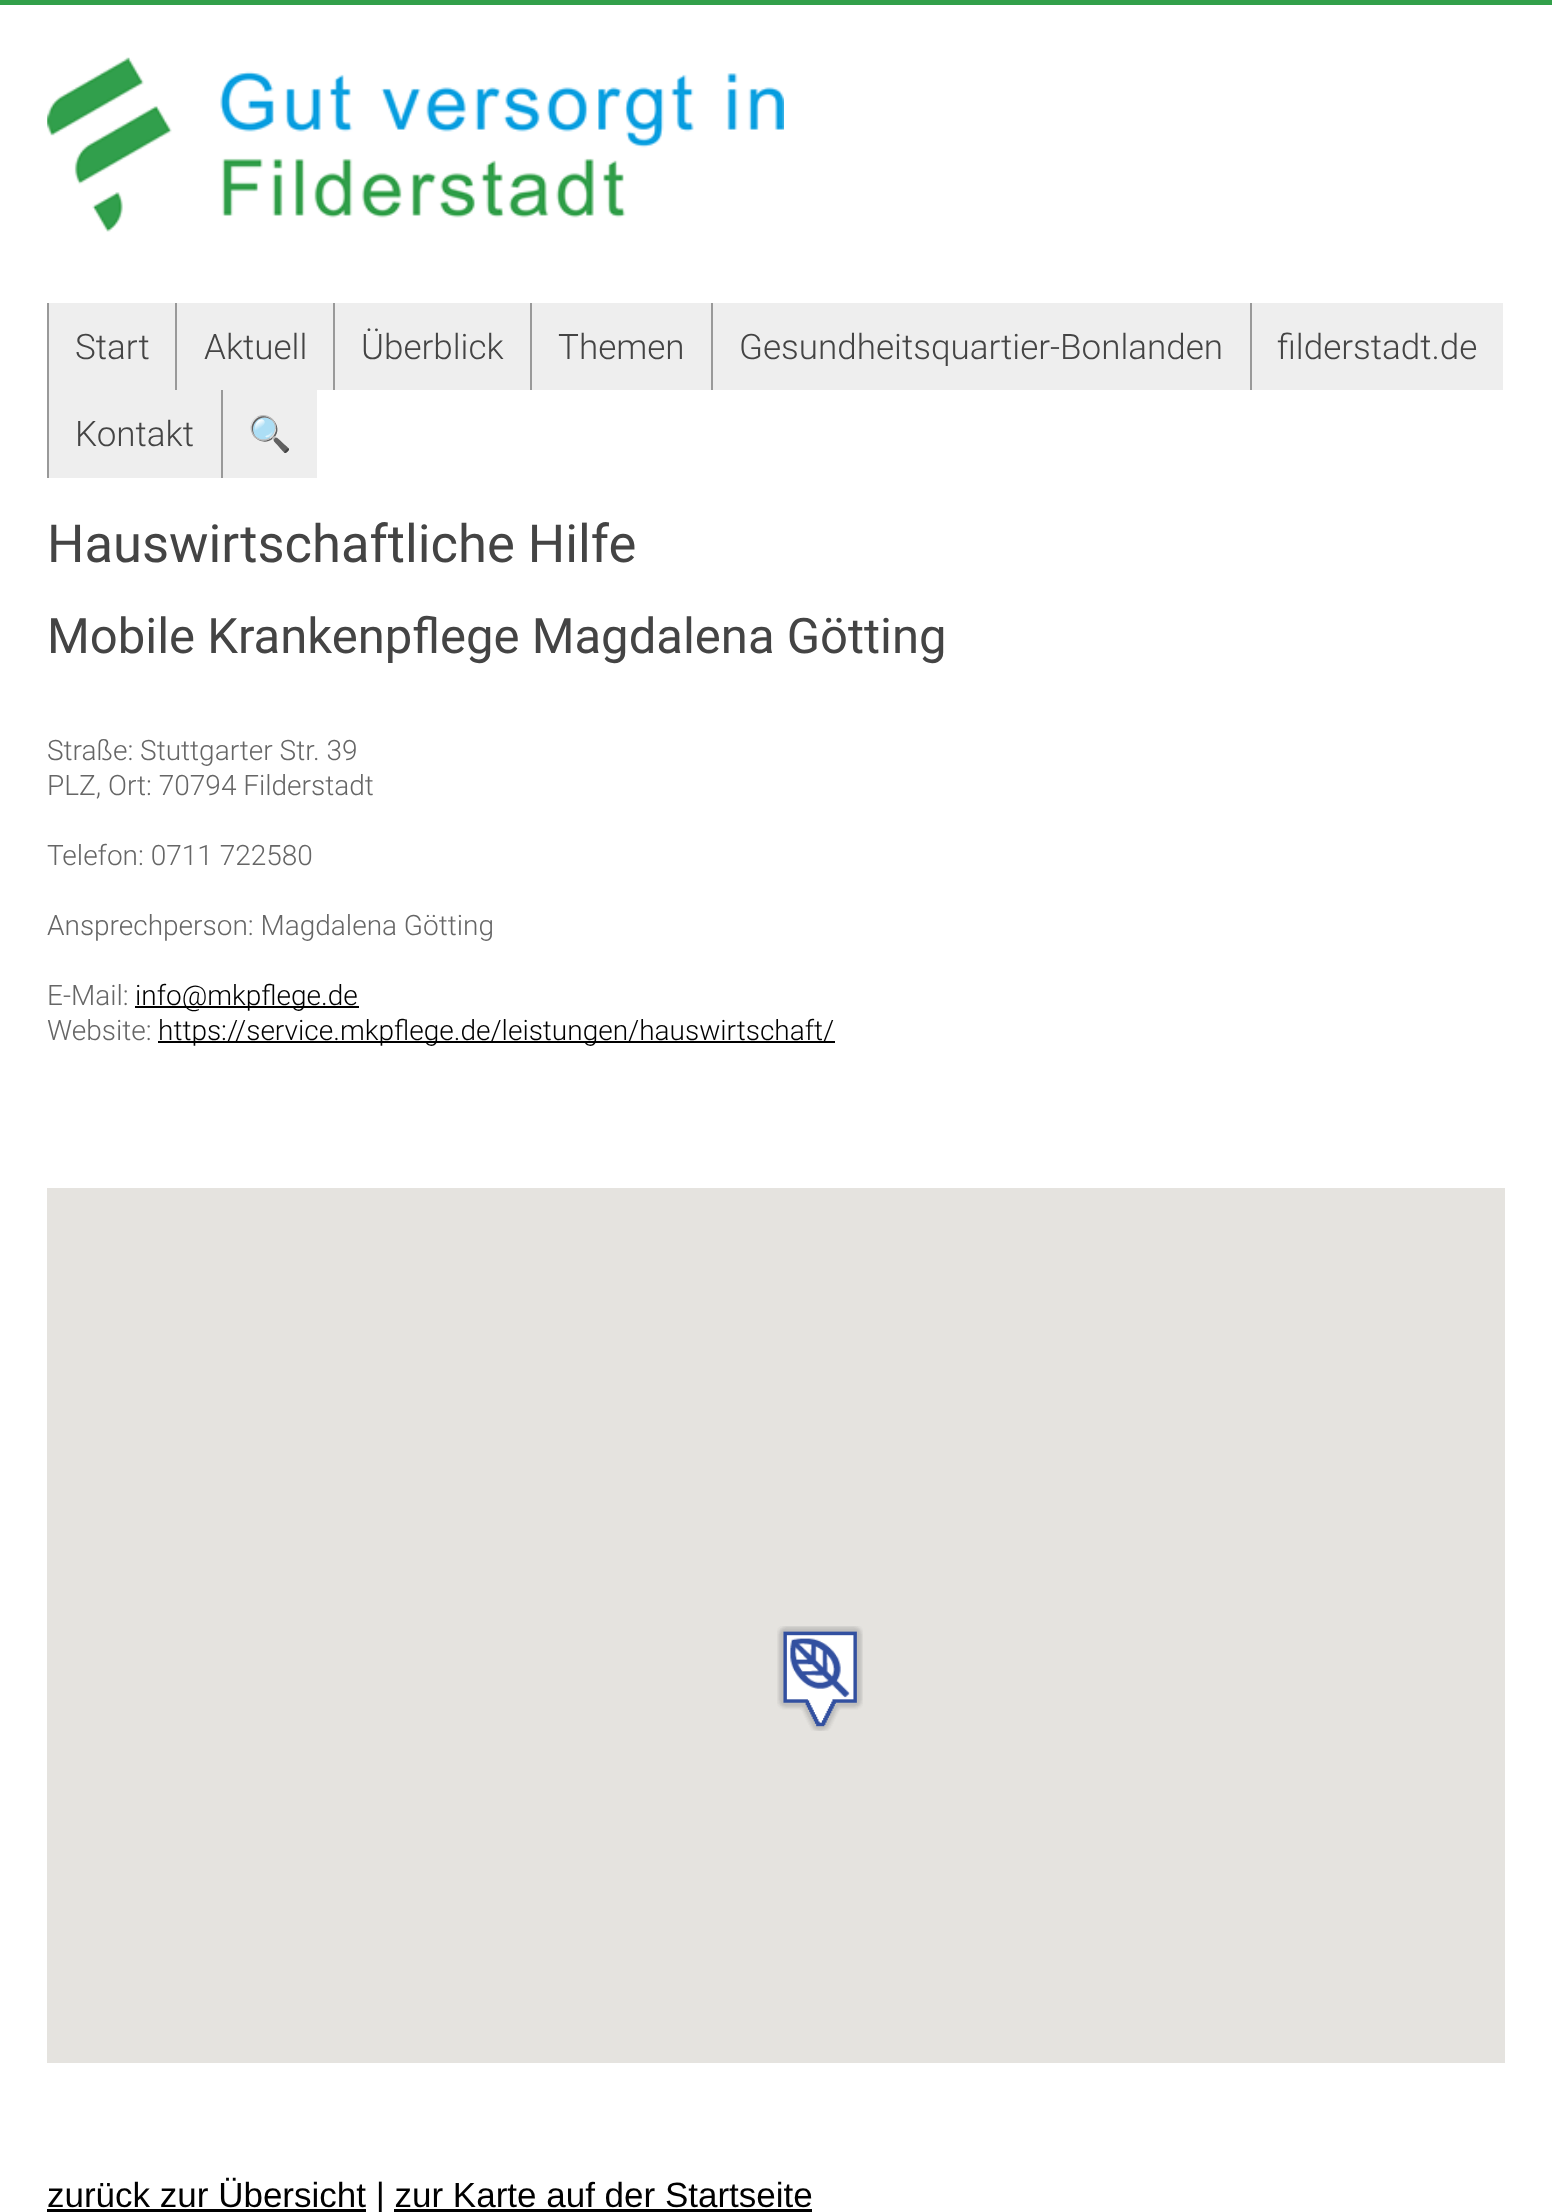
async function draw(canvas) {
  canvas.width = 1552;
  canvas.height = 2212;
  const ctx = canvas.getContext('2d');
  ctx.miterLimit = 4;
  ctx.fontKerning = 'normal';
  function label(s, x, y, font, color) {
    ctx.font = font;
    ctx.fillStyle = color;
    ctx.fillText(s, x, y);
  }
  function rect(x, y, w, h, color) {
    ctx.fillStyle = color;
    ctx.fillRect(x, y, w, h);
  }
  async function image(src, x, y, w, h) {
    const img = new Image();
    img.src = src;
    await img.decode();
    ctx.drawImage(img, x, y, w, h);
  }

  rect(0, 0, 1552, 2212, '#fff');
  rect(0, 0, 1552, 5, '#32a04a');
  await image('assets/img1.png', 47, 57, 737, 175);
  rect(49, 303, 126, 87, '#eee');
  rect(47, 303, 2, 175, '#999');
  label('Start', 75, 359, '300 35px Roboto', '#444');
  rect(177, 303, 156, 87, '#eee');
  rect(175, 303, 2, 87, '#999');
  label('Aktuell', 204, 359, '300 35px Roboto', '#444');
  rect(335, 303, 195, 87, '#eee');
  rect(333, 303, 2, 87, '#999');
  label('Überblick', 361, 359, '300 35px Roboto', '#444');
  rect(532, 303, 179, 87, '#eee');
  rect(530, 303, 2, 87, '#999');
  label('Themen', 558, 359, '300 35px Roboto', '#444');
  rect(713, 303, 537, 87, '#eee');
  rect(711, 303, 2, 87, '#999');
  label('Gesundheitsquartier-Bonlanden', 739, 359, '300 35px Roboto', '#444');
  rect(1252, 303, 251, 87, '#eee');
  rect(1250, 303, 2, 87, '#999');
  label('filderstadt.de', 1277, 359, '300 35px Roboto', '#444');
  rect(49, 390, 172, 88, '#eee');
  label('Kontakt', 75, 446, '300 35px Roboto', '#444');
  rect(223, 390, 94, 88, '#eee');
  rect(221, 390, 2, 88, '#999');
  label('🔍', 248, 446, '35px Noto Color Emoji', '#444');
  label('Hauswirtschaftliche Hilfe', 47, 562, '52.5px Roboto', '#444');
  label('Mobile Krankenpflege Magdalena Götting', 47, 653, '49px Roboto', '#444');
  label('Straße: Stuttgarter Str. 39', 47, 760, '300 28px Roboto', '#666');
  label('PLZ, Ort: 70794 Filderstadt', 47, 795, '300 28px Roboto', '#666');
  label('Telefon: 0711 722580', 47, 865, '300 28px Roboto', '#666');
  label('Ansprechperson: Magdalena Götting', 47, 935, '300 28px Roboto', '#666');
  label('E-Mail:', 47, 1005, '300 28px Roboto', '#666');
  rect(135, 1006, 224, 2, '#000');
  label('info@mkpflege.de', 135, 1005, '300 28px Roboto', '#000');
  label('Website:', 47, 1040, '300 28px Roboto', '#666');
  rect(158, 1041, 677, 2, '#000');
  label('https://service.mkpflege.de/leistungen/hauswirtschaft/', 158, 1040, '300 28px Roboto', '#000');
  rect(47, 1188, 1458, 875, '#e5e3df');
  await image('assets/img2.png', 777, 1626, 86, 105);
  rect(47, 2209, 319, 3, '#000');
  label('zurück zur Übersicht | zur Karte auf der Startseite', 47, 2207, '35px Liberation Sans', '#000');
  rect(394, 2209, 418, 3, '#000');
}

draw(document.querySelector('canvas'));
